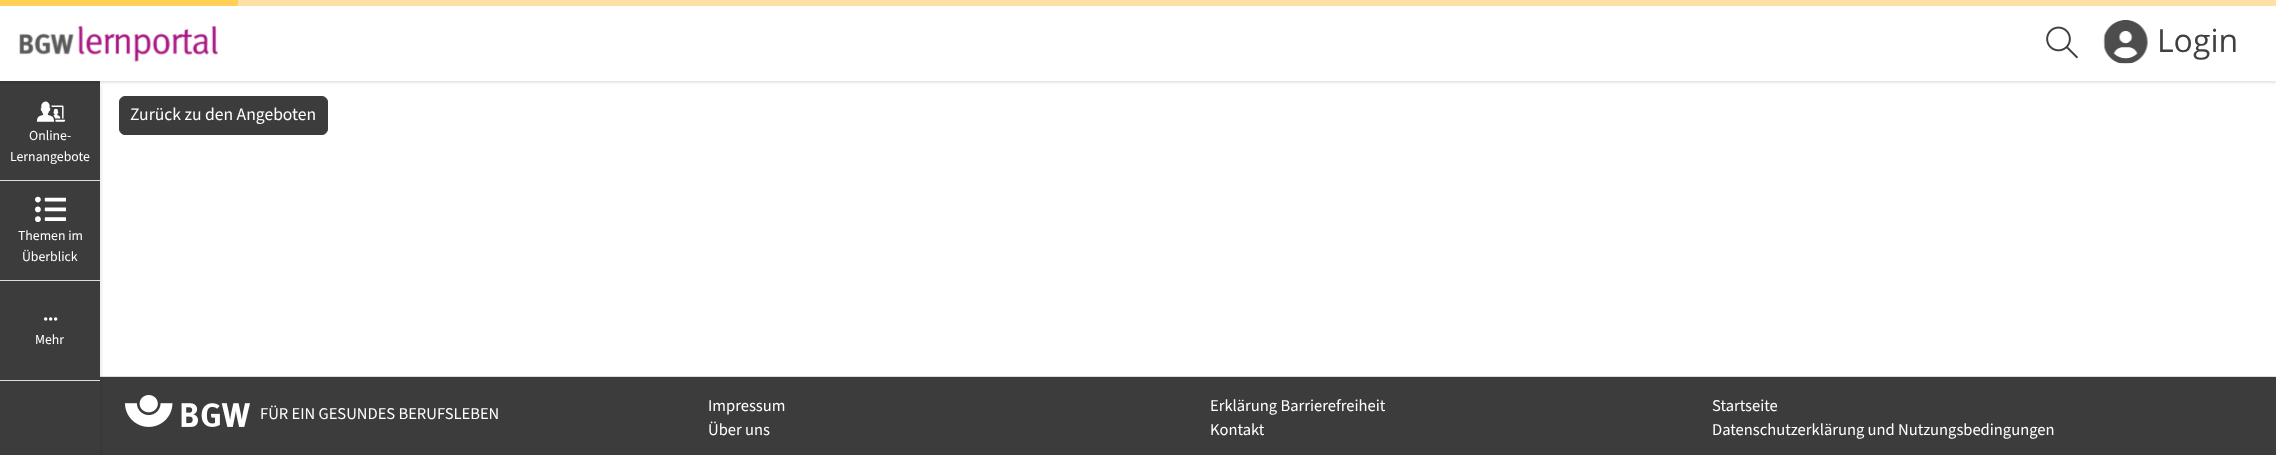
async function draw(canvas) {
  canvas.width = 2276;
  canvas.height = 455;
  const ctx = canvas.getContext('2d');
  ctx.miterLimit = 4;
  ctx.fontKerning = 'normal';
  function label(s, x, y, font, color) {
    ctx.font = font;
    ctx.fillStyle = color;
    ctx.fillText(s, x, y);
  }
  function rect(x, y, w, h, color) {
    ctx.fillStyle = color;
    ctx.fillRect(x, y, w, h);
  }
  async function image(src, x, y, w, h) {
    const img = new Image();
    img.src = src;
    await img.decode();
    ctx.drawImage(img, x, y, w, h);
  }

  rect(0, 0, 2276, 455, '#fff');
  rect(0, 81, 100, 374, '#3c3c3c');
  ctx.save();
  ctx.beginPath();
  ctx.rect(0, 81, 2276, 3);
  ctx.clip();
  ctx.fillStyle = '#0000001a';
  ctx.filter = 'blur(1px)';
  ctx.beginPath();
  ctx.rect(0, 1, 2276, 82);
  ctx.fill();
  ctx.filter = 'none';
  ctx.restore();
  rect(238, 0, 2038, 6, '#fee0a6');
  rect(0, 0, 238, 6, '#ffd054');
  await image('assets/img1.png', 19, 25, 199, 37);
  await image('assets/img2.png', 2046, 26, 32, 33);
  await image('assets/img3.png', 2103, 20, 45, 44);
  label('Login', 2157, 52, '32px Open Sans', '#404040');
  rect(100, 377, 2176, 78, '#3c3c3c');
  rect(100, 376, 2176, 1, '#ddd');
  ctx.save();
  ctx.beginPath();
  ctx.rect(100, 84, 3, 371);
  ctx.clip();
  ctx.fillStyle = '#0000001a';
  ctx.filter = 'blur(2.5px)';
  ctx.beginPath();
  ctx.rect(1, 85, 100, 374);
  ctx.fill();
  ctx.filter = 'none';
  ctx.restore();
  rect(0, 180, 100, 1, '#ddd');
  await image('assets/img4.png', 36, 101, 30, 21);
  label('Online-', 29, 140, '13.75px "Source Sans 3"', '#fff');
  label('Lernangebote', 10, 161, '13.75px "Source Sans 3"', '#fff');
  rect(0, 280, 100, 1, '#ddd');
  await image('assets/img5.png', 35, 196, 31, 26);
  label('Themen im', 18, 240, '13.75px "Source Sans 3"', '#fff');
  label('Überblick', 22, 261, '13.75px "Source Sans 3"', '#fff');
  rect(0, 380, 100, 1, '#ddd');
  await image('assets/img6.png', 44, 317, 14, 4);
  label('Mehr', 35, 344, '13.75px "Source Sans 3"', '#fff');
  ctx.fillStyle = '#3c3c3c';
  ctx.beginPath();
  ctx.roundRect(119.5, 96.5, 208, 38, 5.5);
  ctx.fill();
  ctx.strokeStyle = '#3c3c3c';
  ctx.stroke();
  label('Zurück zu den Angeboten', 130, 120, '17.6px "Source Sans 3"', '#fff');
  await image('assets/img7.png', 125, 395, 125, 32);
  label('FÜR EIN GESUNDES BERUFSLEBEN', 260, 419, '16.5px "Source Sans 3"', '#fff');
  label('Impressum', 708, 411, '16.5px "Source Sans 3"', '#fff');
  label('Erklärung Barrierefreiheit', 1210, 411, '16.5px "Source Sans 3"', '#fff');
  label('Startseite', 1712, 411, '16.5px "Source Sans 3"', '#fff');
  label('Über uns', 708, 435, '16.5px "Source Sans 3"', '#fff');
  label('Kontakt', 1210, 435, '16.5px "Source Sans 3"', '#fff');
  label('Datenschutzerklärung und Nutzungsbedingungen', 1712, 435, '16.5px "Source Sans 3"', '#fff');
}

draw(document.querySelector('canvas'));
